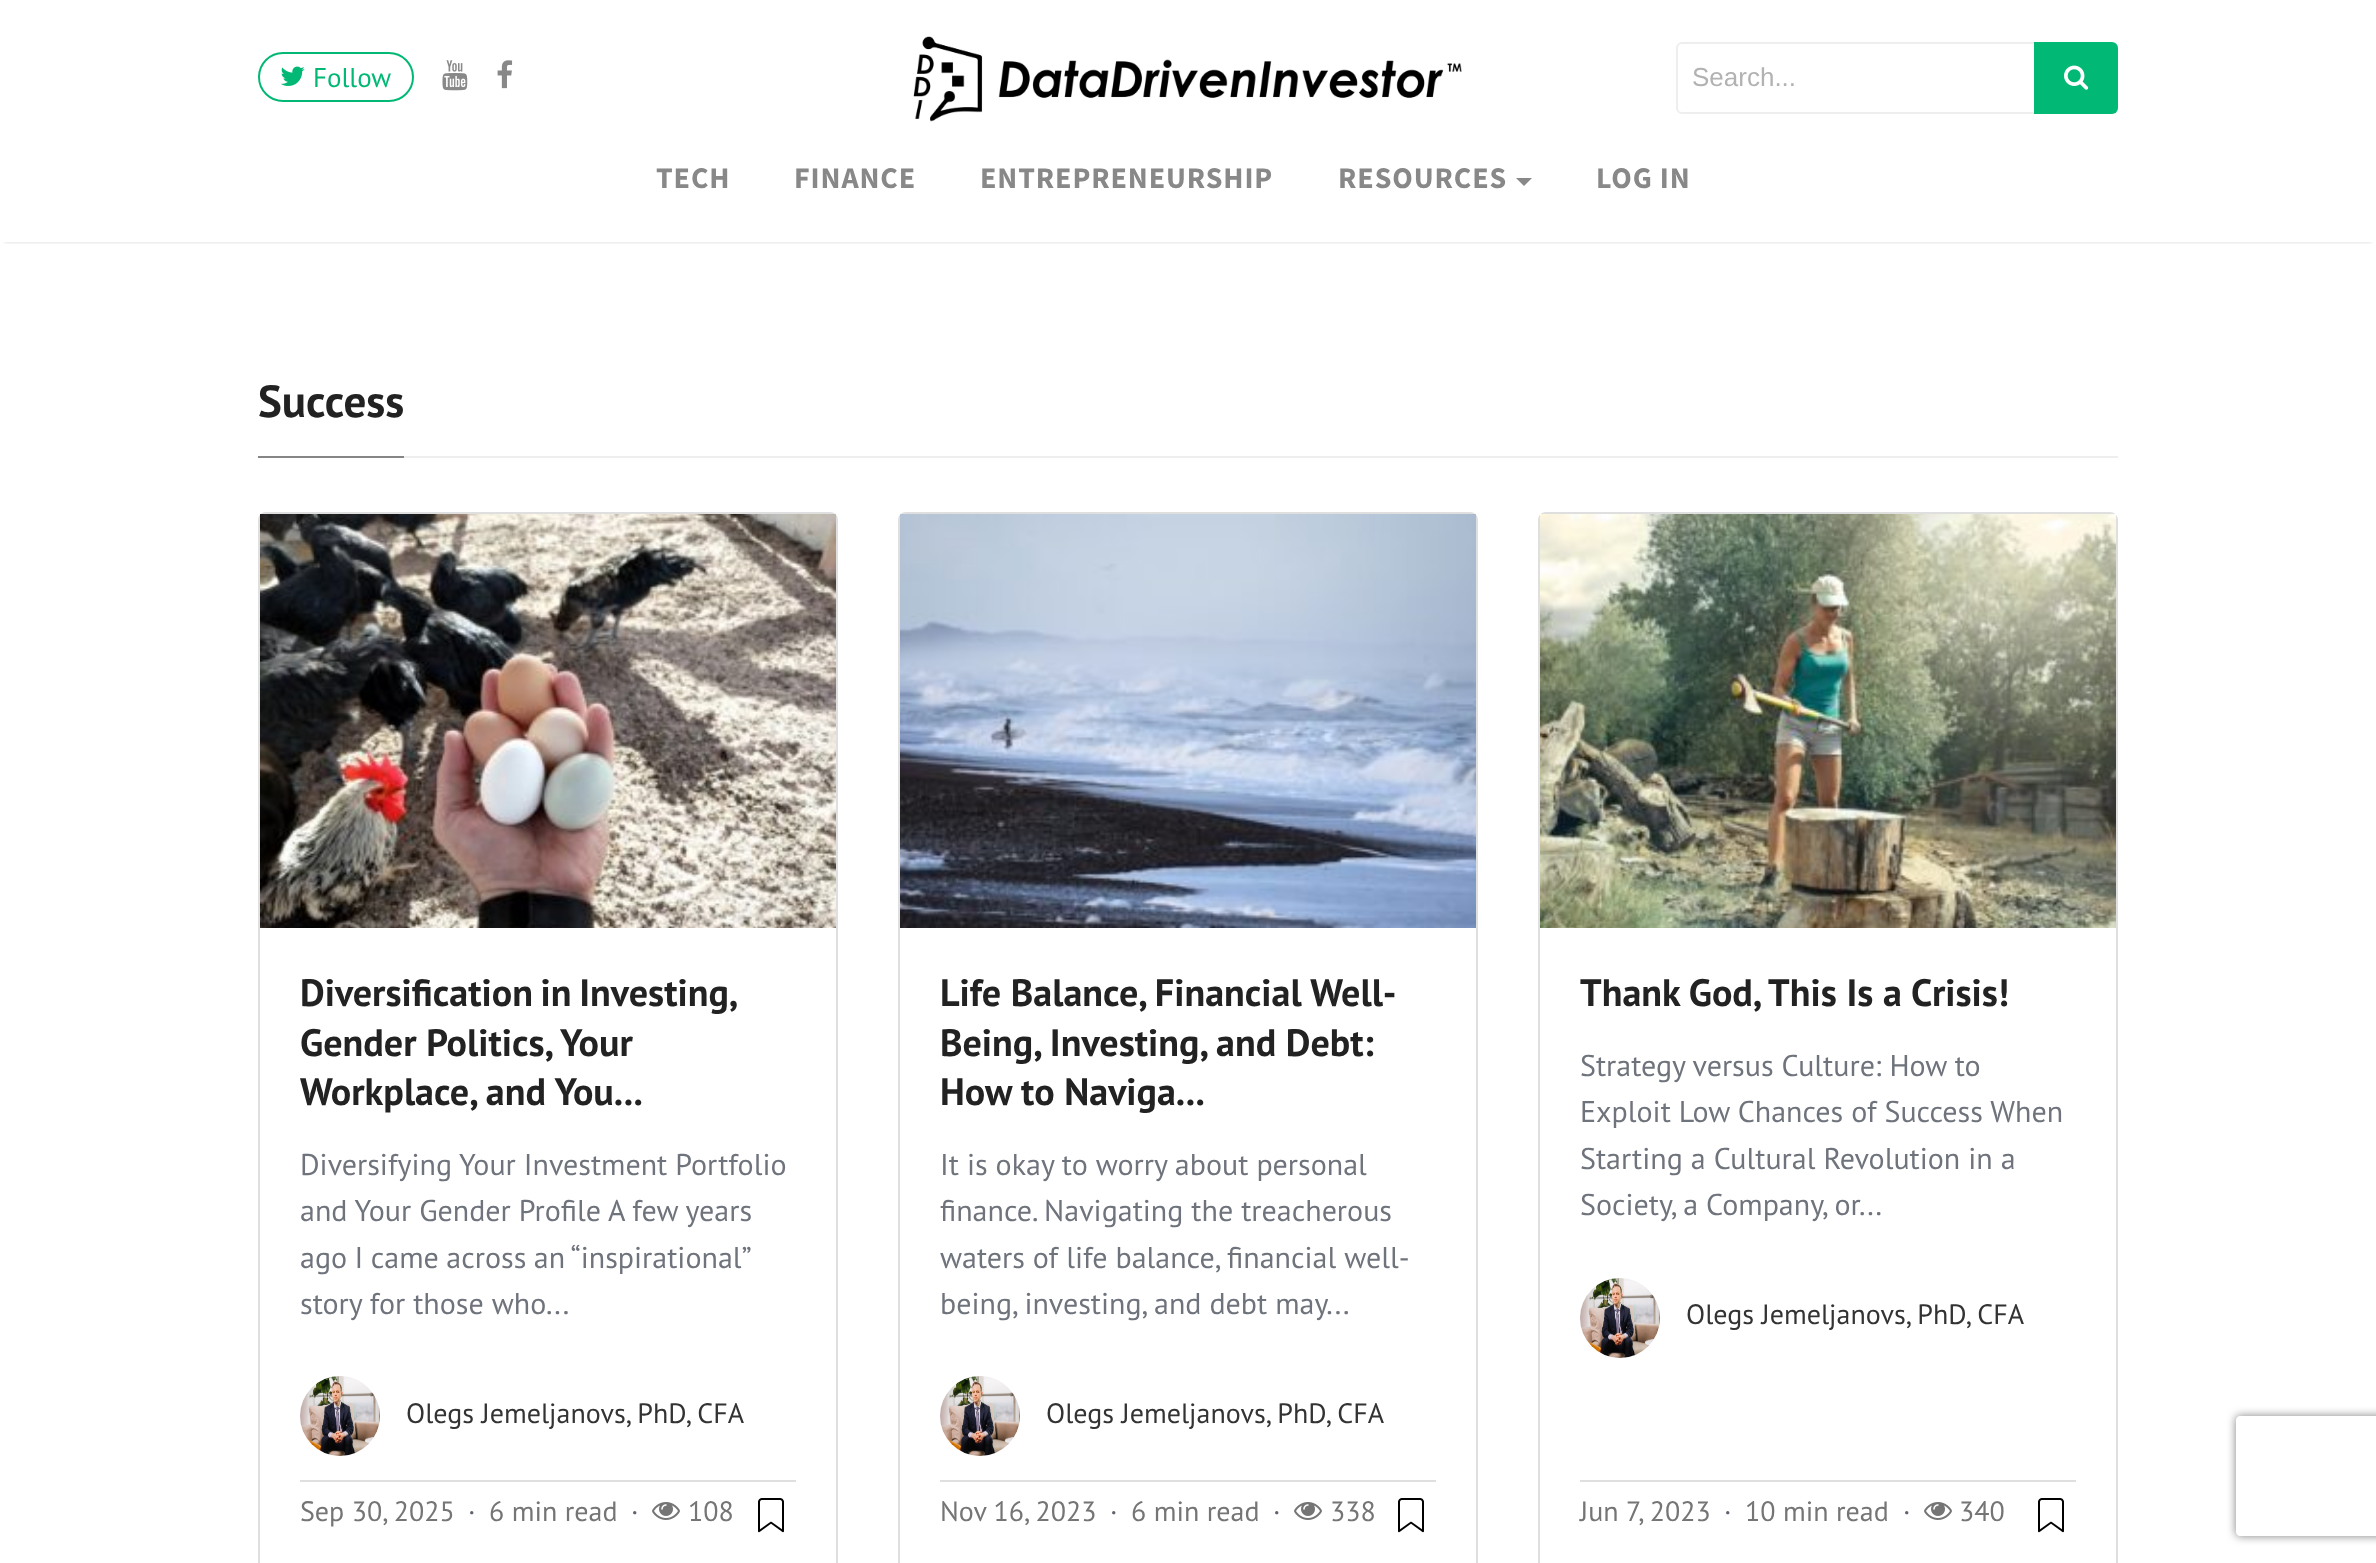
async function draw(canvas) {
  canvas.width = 2376;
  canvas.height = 1563;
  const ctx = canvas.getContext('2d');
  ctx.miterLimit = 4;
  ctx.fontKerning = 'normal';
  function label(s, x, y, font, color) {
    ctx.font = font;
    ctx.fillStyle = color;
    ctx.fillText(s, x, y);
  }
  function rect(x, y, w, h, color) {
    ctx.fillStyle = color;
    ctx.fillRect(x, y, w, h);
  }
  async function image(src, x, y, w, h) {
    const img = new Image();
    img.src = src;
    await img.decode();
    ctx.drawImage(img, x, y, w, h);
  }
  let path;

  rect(0, 0, 2376, 1563, '#fff');
  ctx.save();
  ctx.beginPath();
  ctx.rect(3, 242, 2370, 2);
  ctx.clip();
  ctx.fillStyle = '#00000026';
  ctx.filter = 'blur(2px)';
  ctx.beginPath();
  ctx.rect(4, 8, 2368, 234);
  ctx.fill();
  ctx.filter = 'none';
  ctx.restore();
  ctx.beginPath();
  ctx.roundRect(259, 53, 154, 48, 24);
  ctx.strokeStyle = '#02b875';
  ctx.lineWidth = 2;
  ctx.stroke();
  await image('assets/img1.png', 280, 66, 25, 20);
  label('Follow', 313, 87, '27px PT Sans', '#02b875');
  await image('assets/img2.png', 442, 60, 26, 31);
  await image('assets/img3.png', 497, 60, 16, 29);
  await image('assets/img4.png', 913, 36, 549, 86);
  ctx.beginPath();
  ctx.roundRect(1677, 43, 358, 70, [5, 0, 0, 5]);
  ctx.strokeStyle = '#eee';
  ctx.stroke();
  label('Search...', 1692, 86, '26px Liberation Sans', '#b2b2b2');
  ctx.fillStyle = '#02b875';
  ctx.beginPath();
  ctx.roundRect(2034, 42, 84, 72, [0, 6, 6, 0]);
  ctx.fill();
  await image('assets/img5.png', 2064, 65, 25, 25);
  ctx.letterSpacing = '0.9px';
  label('TECH', 656, 188, 'bold 30px Source Sans Pro', '#888');
  label('FINANCE', 794, 188, 'bold 30px Source Sans Pro', '#888');
  label('ENTREPRENEURSHIP', 980, 188, 'bold 30px Source Sans Pro', '#888');
  label('RESOURCES', 1338, 188, 'bold 30px Source Sans Pro', '#888');
  path = new Path2D('M1516 178H1532L1524 186Z');
  ctx.fill(path);
  label('LOG IN', 1596, 188, 'bold 30px Source Sans Pro', '#888');
  rect(404, 456, 1714, 2, '#eee');
  rect(258, 456, 146, 2, '#858585');
  ctx.letterSpacing = '0px';
  label('Success', 258, 417, 'bold 45px PT Sans', '#222');
  ctx.beginPath();
  ctx.roundRect(259, 513, 578, 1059, 7);
  ctx.strokeStyle = '#dfdfdf';
  ctx.stroke();
  await image('assets/img6.png', 260, 514, 576, 414);
  ctx.wordSpacing = '-2px';
  label('Diversification in Investing,', 300, 1006, 'bold 38.1px PT Sans', '#222');
  ctx.wordSpacing = '0px';
  label('Gender Politics, Your', 300, 1056, 'bold 38.1px PT Sans', '#222');
  label('Workplace, and You...', 300, 1105, 'bold 38.1px PT Sans', '#222');
  label('Diversifying Your Investment Portfolio', 300, 1175, '30px PT Sans', '#6f737c');
  label('and Your Gender Profile A few years', 300, 1221, '30px PT Sans', '#6f737c');
  ctx.wordSpacing = '-0.5px';
  label('ago I came across an “inspirational”', 300, 1268, '30px PT Sans', '#6f737c');
  ctx.wordSpacing = '0px';
  label('story for those who...', 300, 1314, '30px PT Sans', '#6f737c');
  await image('assets/img7.png', 300, 1376, 80, 80);
  label('Olegs Jemeljanovs, PhD, CFA', 406, 1423, '28px PT Sans', '#333');
  rect(300, 1480, 496, 2, '#dfdfdf');
  label('Sep 30, 2025', 300, 1521, '28px PT Sans', '#757575');
  label('·', 468, 1521, '28px PT Sans', '#5f636d');
  label('6 min read', 489, 1521, '28px PT Sans', '#757575');
  label('·', 631, 1521, '28px PT Sans', '#5f636d');
  await image('assets/img8.png', 652, 1502, 28, 18);
  label('108', 688, 1521, '28px PT Sans', '#757575');
  await image('assets/img9.png', 758, 1498, 26, 35);
  ctx.beginPath();
  ctx.roundRect(899, 513, 578, 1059, 7);
  ctx.stroke();
  await image('assets/img10.png', 900, 514, 576, 414);
  label('Life Balance, Financial Well-', 940, 1006, 'bold 38.1px PT Sans', '#222');
  label('Being, Investing, and Debt:', 940, 1056, 'bold 38.1px PT Sans', '#222');
  label('How to Naviga...', 940, 1105, 'bold 38.1px PT Sans', '#222');
  label('It is okay to worry about personal', 940, 1175, '30px PT Sans', '#6f737c');
  label('finance. Navigating the treacherous', 940, 1221, '30px PT Sans', '#6f737c');
  label('waters of life balance, financial well-', 940, 1268, '30px PT Sans', '#6f737c');
  label('being, investing, and debt may...', 940, 1314, '30px PT Sans', '#6f737c');
  await image('assets/img11.png', 940, 1376, 80, 80);
  label('Olegs Jemeljanovs, PhD, CFA', 1046, 1423, '28px PT Sans', '#333');
  rect(940, 1480, 496, 2, '#dfdfdf');
  label('Nov 16, 2023', 940, 1521, '28px PT Sans', '#757575');
  label('·', 1110, 1521, '28px PT Sans', '#5f636d');
  label('6 min read', 1131, 1521, '28px PT Sans', '#757575');
  label('·', 1273, 1521, '28px PT Sans', '#5f636d');
  await image('assets/img8.png', 1294, 1502, 28, 18);
  label('338', 1330, 1521, '28px PT Sans', '#757575');
  await image('assets/img9.png', 1398, 1498, 26, 35);
  ctx.beginPath();
  ctx.roundRect(1539, 513, 578, 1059, 7);
  ctx.stroke();
  await image('assets/img12.png', 1540, 514, 576, 414);
  label('Thank God, This Is a Crisis!', 1580, 1006, 'bold 38.1px PT Sans', '#222');
  label('Strategy versus Culture: How to', 1580, 1076, '30px PT Sans', '#6f737c');
  label('Exploit Low Chances of Success When', 1580, 1122, '30px PT Sans', '#6f737c');
  label('Starting a Cultural Revolution in a', 1580, 1169, '30px PT Sans', '#6f737c');
  label('Society, a Company, or...', 1580, 1215, '30px PT Sans', '#6f737c');
  await image('assets/img7.png', 1580, 1278, 80, 80);
  label('Olegs Jemeljanovs, PhD, CFA', 1686, 1324, '28px PT Sans', '#333');
  rect(1580, 1480, 496, 2, '#dfdfdf');
  label('Jun 7, 2023', 1580, 1521, '28px PT Sans', '#757575');
  label('·', 1724, 1521, '28px PT Sans', '#5f636d');
  label('10 min read', 1745, 1521, '28px PT Sans', '#757575');
  label('·', 1903, 1521, '28px PT Sans', '#5f636d');
  await image('assets/img8.png', 1924, 1502, 28, 18);
  label('340', 1959, 1521, '28px PT Sans', '#757575');
  await image('assets/img9.png', 2038, 1498, 26, 35);
  ctx.save();
  path = new Path2D('M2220 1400H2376V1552H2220ZM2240 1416H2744C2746 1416 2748 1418 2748 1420V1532C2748 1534 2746 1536 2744 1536H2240C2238 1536 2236 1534 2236 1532V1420C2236 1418 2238 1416 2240 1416Z');
  ctx.clip(path, 'evenodd');
  ctx.fillStyle = '#808080';
  ctx.filter = 'blur(5px)';
  ctx.beginPath();
  ctx.roundRect(2236, 1416, 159, 120, 4);
  ctx.fill();
  ctx.filter = 'none';
  ctx.restore();
}

draw(document.querySelector('canvas'));
